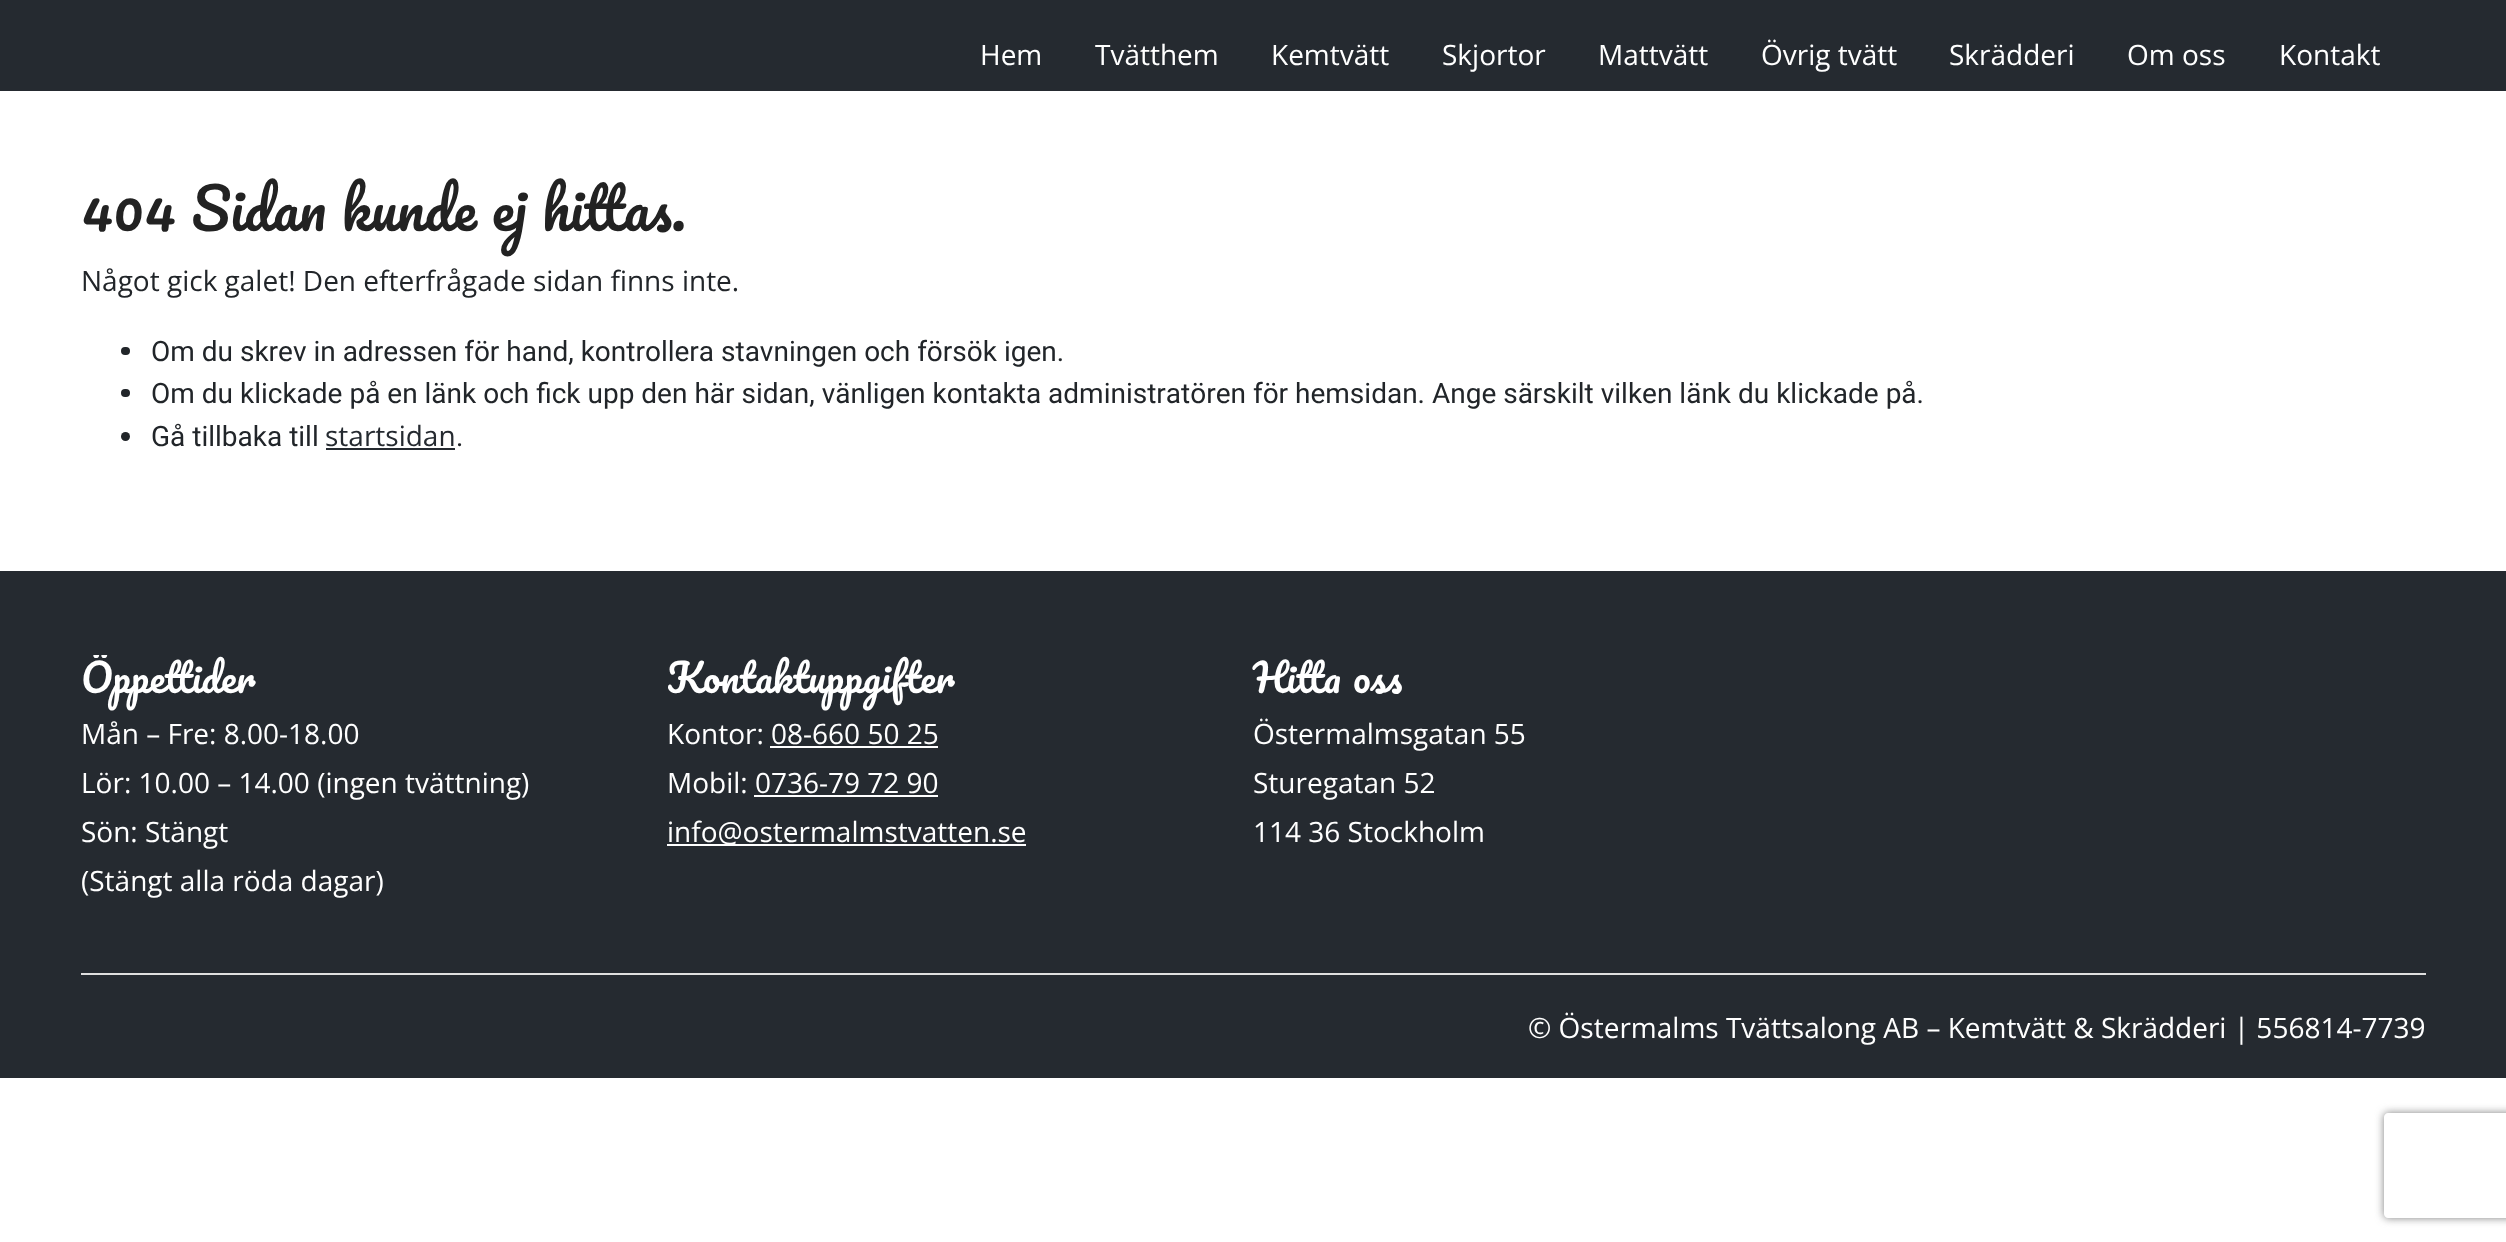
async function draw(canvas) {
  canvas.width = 2506;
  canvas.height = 1242;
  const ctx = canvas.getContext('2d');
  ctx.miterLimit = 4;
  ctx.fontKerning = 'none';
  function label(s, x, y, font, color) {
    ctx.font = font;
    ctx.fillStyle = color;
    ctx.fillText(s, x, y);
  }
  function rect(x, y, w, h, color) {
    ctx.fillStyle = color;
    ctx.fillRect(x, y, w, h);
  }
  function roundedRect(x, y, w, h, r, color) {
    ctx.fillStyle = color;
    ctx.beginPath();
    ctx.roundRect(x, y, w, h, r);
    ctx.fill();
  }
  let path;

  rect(0, 0, 2506, 1242, '#fff');
  rect(0, 0, 2506, 91, '#252a30');
  label('Hem', 980, 65, '28px Open Sans', '#fff');
  label('Tvätthem', 1095, 65, '28px Open Sans', '#fff');
  label('Kemtvätt', 1271, 65, '28px Open Sans', '#fff');
  label('Skjortor', 1442, 65, '28px Open Sans', '#fff');
  label('Mattvätt', 1598, 65, '28px Open Sans', '#fff');
  label('Övrig tvätt', 1761, 65, '28px Open Sans', '#fff');
  label('Skrädderi', 1949, 65, '28px Open Sans', '#fff');
  label('Om oss', 2127, 65, '28px Open Sans', '#fff');
  label('Kontakt', 2279, 65, '28px Open Sans', '#fff');
  ctx.wordSpacing = '0.5px';
  label('404 Sidan kunde ej hittas.', 81, 231, '56px Pacifico', '#222');
  ctx.wordSpacing = '0px';
  label('Något gick galet! Den efterfrågade sidan finns inte.', 81, 291, '28px Open Sans', '#212529');
  roundedRect(121, 347, 9, 8, 4, '#212529');
  label('Om du skrev in adressen för hand, kontrollera stavningen och försök igen.', 151, 361, '28px Roboto', '#212529');
  roundedRect(121, 389, 9, 8, 4, '#212529');
  label('Om du klickade på en länk och fick upp den här sidan, vänligen kontakta administratören för hemsidan. Ange särskilt vilken länk du klickade på.', 151, 403, '28px Roboto', '#212529');
  ctx.beginPath();
  ctx.arc(125.5, 436.5, 4.5, 0, 2 * Math.PI);
  ctx.fill();
  label('Gå tillbaka till', 151, 446, '28px Roboto', '#212529');
  label('startsidan', 325, 446, '28px Open Sans', '#252a30');
  rect(326, 448, 129, 2, '#252a30');
  label('.', 456, 446, '28px Roboto', '#212529');
  rect(0, 571, 2506, 507, '#252a30');
  ctx.save();
  ctx.beginPath();
  ctx.rect(81, 655, 2345, 423);
  ctx.clip();
  label('Öppettider', 81, 693, '38.5px Pacifico', '#fff');
  ctx.restore();
  label('Mån – Fre: 8.00-18.00', 81, 744, '28px Open Sans', '#fff');
  label('Lör: 10.00 – 14.00 (ingen tvättning)', 81, 793, '28px Open Sans', '#fff');
  label('Sön: Stängt', 81, 842, '28px Open Sans', '#fff');
  label('(Stängt alla röda dagar)', 81, 891, '28px Open Sans', '#fff');
  label('Kontaktuppgifter', 667, 693, '38.5px Pacifico', '#fff');
  label('Kontor: 08-660 50 25', 667, 744, '28px Open Sans', '#fff');
  rect(770, 746, 168, 2, '#fff');
  label('Mobil: 0736-79 72 90', 667, 793, '28px Open Sans', '#fff');
  rect(754, 795, 184, 2, '#fff');
  rect(667, 844, 359, 2, '#fff');
  label('info@ostermalmstvatten.se', 667, 842, '28px Open Sans', '#fff');
  ctx.wordSpacing = '2px';
  label('Hitta oss', 1253, 693, '38.5px Pacifico', '#fff');
  ctx.wordSpacing = '0px';
  label('Östermalmsgatan 55', 1253, 744, '28px Open Sans', '#fff');
  label('Sturegatan 52', 1253, 793, '28px Open Sans', '#fff');
  label('114 36 Stockholm', 1253, 842, '28px Open Sans', '#fff');
  rect(81, 973, 2345, 2, '#dfdfdf');
  label('© Östermalms Tvättsalong AB – Kemtvätt & Skrädderi | 556814-7739', 1528, 1038, '28px Open Sans', '#fff');
  ctx.save();
  path = new Path2D('M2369 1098H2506V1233H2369ZM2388 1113H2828C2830 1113 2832 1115 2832 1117V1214C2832 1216 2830 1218 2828 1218H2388C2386 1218 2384 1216 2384 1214V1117C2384 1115 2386 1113 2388 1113Z');
  ctx.clip(path, 'evenodd');
  ctx.fillStyle = '#808080';
  ctx.filter = 'blur(4.5px)';
  ctx.beginPath();
  ctx.roundRect(2384, 1113, 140, 105, 4);
  ctx.fill();
  ctx.filter = 'none';
  ctx.restore();
}

draw(document.querySelector('canvas'));
